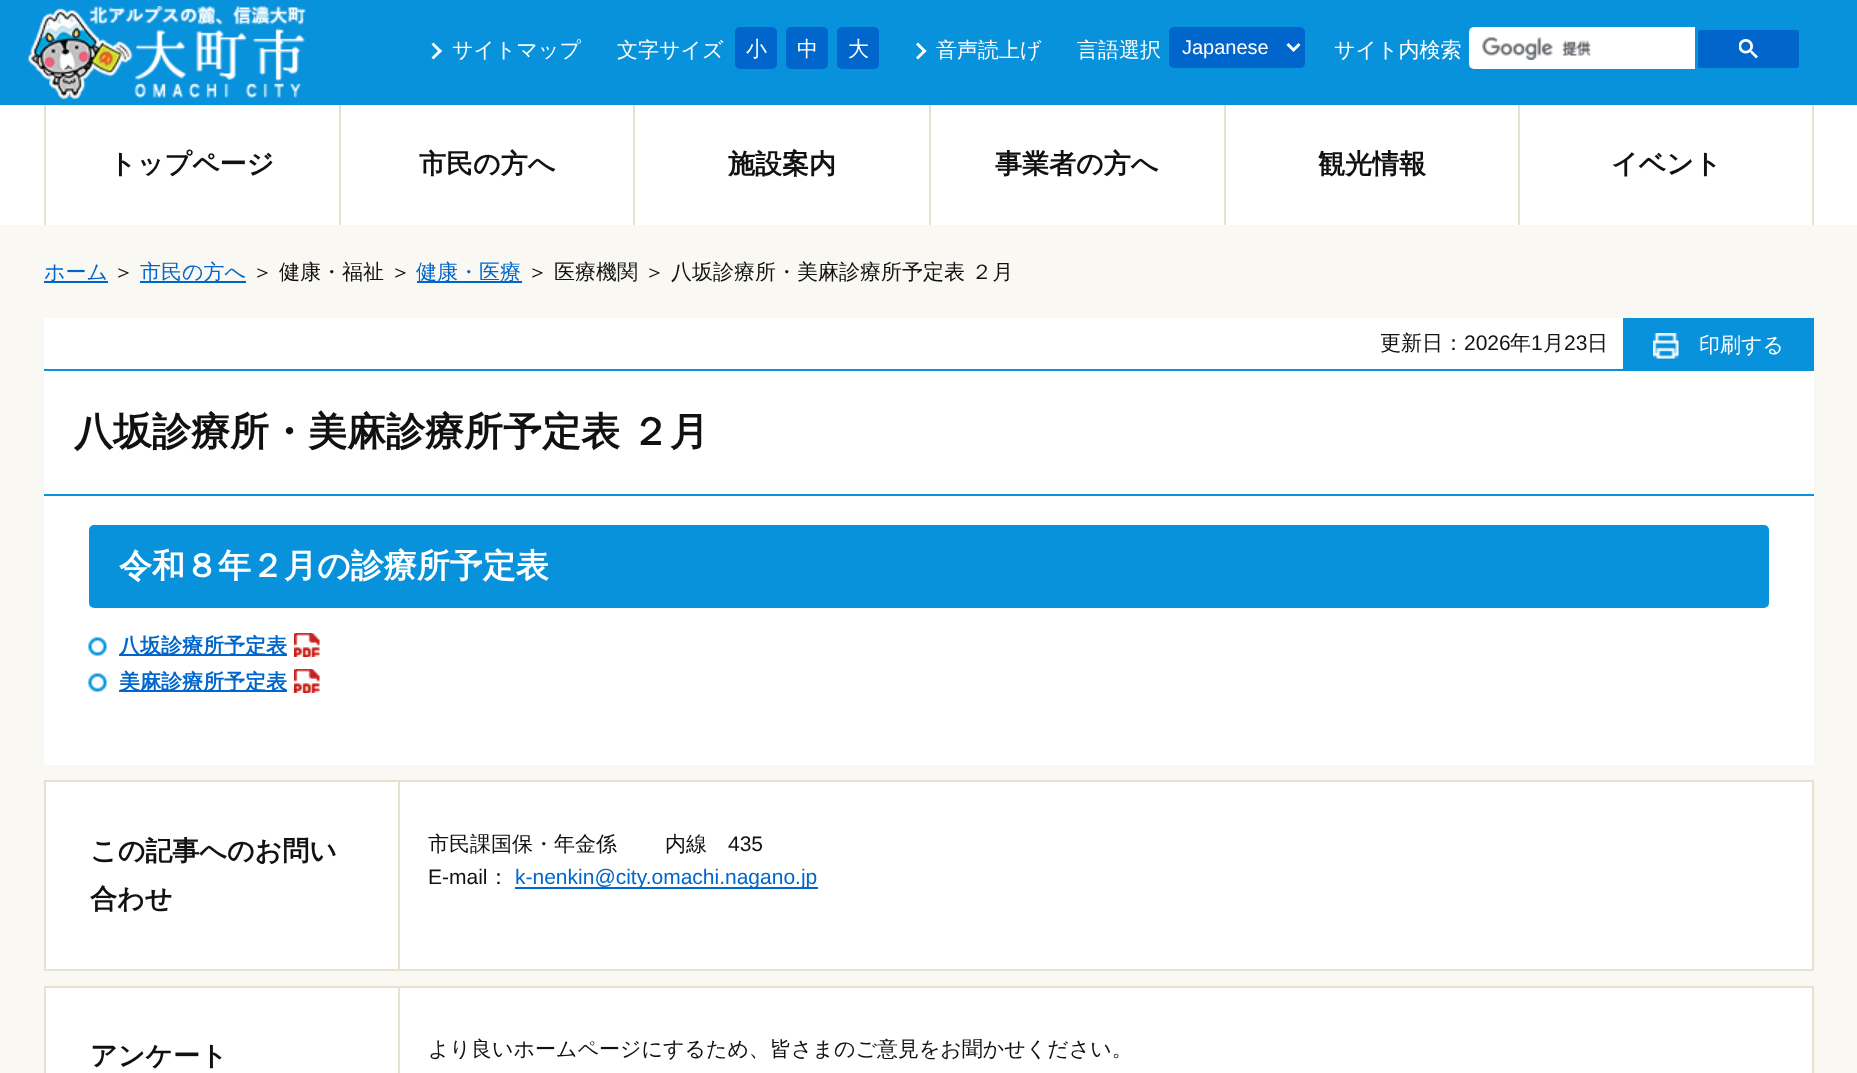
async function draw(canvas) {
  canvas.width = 1857;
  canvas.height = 1073;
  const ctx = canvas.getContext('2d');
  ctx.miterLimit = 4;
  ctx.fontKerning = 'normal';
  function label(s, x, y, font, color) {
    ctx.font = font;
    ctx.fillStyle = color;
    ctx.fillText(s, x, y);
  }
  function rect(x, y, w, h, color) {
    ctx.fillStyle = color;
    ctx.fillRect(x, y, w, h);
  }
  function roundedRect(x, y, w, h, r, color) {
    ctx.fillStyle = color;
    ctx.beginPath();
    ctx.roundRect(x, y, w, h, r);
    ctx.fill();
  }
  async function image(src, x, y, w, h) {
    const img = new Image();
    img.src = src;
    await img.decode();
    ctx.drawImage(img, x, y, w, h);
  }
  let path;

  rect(0, 0, 1857, 1073, '#fff');
  rect(0, 0, 1857, 105, '#0992dc');
  await image('assets/img1.png', 28, 6, 278, 93);
  ctx.fillStyle = '#fff';
  path = new Path2D('M431.5 44.5L433.5 42.5L442 51L440 53Z');
  ctx.fill(path);
  path = new Path2D('M431.5 57.5L440 49L442 51L433.5 59.5Z');
  ctx.fill(path);
  label('サイトマップ', 452, 57, '500 21px WenQuanYi Zen Hei', '#fff');
  label('文字サイズ', 617, 57, '500 21px WenQuanYi Zen Hei', '#fff');
  roundedRect(735, 27, 42, 42, 5, '#06c');
  label('小', 746, 56, '500 21px WenQuanYi Zen Hei', '#fff');
  roundedRect(786, 27, 42, 42, 5, '#06c');
  label('中', 797, 56, '500 21px WenQuanYi Zen Hei', '#fff');
  roundedRect(837, 27, 42, 42, 5, '#06c');
  label('大', 848, 56, '500 21px WenQuanYi Zen Hei', '#fff');
  path = new Path2D('M916 44.5L918 42.5L926.5 51L924.5 53Z');
  ctx.fill(path);
  path = new Path2D('M916 57.5L924.5 49L926.5 51L918 59.5Z');
  ctx.fill(path);
  label('音声読上げ', 936, 57, '500 21px WenQuanYi Zen Hei', '#fff');
  label('言語選択', 1077, 57, '500 21px WenQuanYi Zen Hei', '#fff');
  roundedRect(1169, 27, 136, 41, 5, '#06c');
  path = new Path2D('M1287.5 44L1293.5 50L1299.5 44');
  ctx.strokeStyle = '#fff';
  ctx.lineWidth = 3;
  ctx.stroke(path);
  label('Japanese', 1182, 54, '20px Liberation Sans', '#fff');
  label('サイト内検索', 1334, 57, '500 21px WenQuanYi Zen Hei', '#fff');
  ctx.beginPath();
  ctx.roundRect(1469, 27, 226, 42, [5, 0, 0, 5]);
  ctx.fill();
  await image('assets/img2.png', 1482, 37, 109, 23);
  roundedRect(1698, 30, 101, 38, 3, '#06c');
  await image('assets/img3.png', 1739, 39, 19, 20);
  rect(44, 105, 2, 120, '#e7e2cd');
  label('トップページ', 109, 173, 'bold 27px WenQuanYi Zen Hei', '#111');
  rect(339, 105, 2, 120, '#e7e2cd');
  label('市民の方へ', 419, 173, 'bold 27px WenQuanYi Zen Hei', '#111');
  rect(633, 105, 2, 120, '#e7e2cd');
  label('施設案内', 728, 173, 'bold 27px WenQuanYi Zen Hei', '#111');
  rect(929, 105, 2, 120, '#e7e2cd');
  label('事業者の方へ', 995, 173, 'bold 27px WenQuanYi Zen Hei', '#111');
  rect(1224, 105, 2, 120, '#e7e2cd');
  label('観光情報', 1318, 173, 'bold 27px WenQuanYi Zen Hei', '#111');
  rect(1812, 105, 2, 120, '#e7e2cd');
  rect(1518, 105, 2, 120, '#e7e2cd');
  label('イベント', 1611, 173, 'bold 27px WenQuanYi Zen Hei', '#111');
  rect(0, 225, 1857, 848, '#f9f8f3');
  rect(44, 281, 64, 2, '#06c');
  label('ホーム', 44, 279, '500 21px WenQuanYi Zen Hei', '#06c');
  label('＞', 113, 279, '500 21px WenQuanYi Zen Hei', '#111');
  rect(140, 281, 106, 2, '#06c');
  label('市民の方へ', 140, 279, '500 21px WenQuanYi Zen Hei', '#06c');
  label('＞', 252, 279, '500 21px WenQuanYi Zen Hei', '#111');
  label('健康・福祉', 279, 279, '500 21px WenQuanYi Zen Hei', '#111');
  label('＞', 390, 279, '500 21px WenQuanYi Zen Hei', '#111');
  rect(417, 281, 105, 2, '#06c');
  label('健康・医療', 416, 279, '500 21px WenQuanYi Zen Hei', '#06c');
  label('＞', 527, 279, '500 21px WenQuanYi Zen Hei', '#111');
  label('医療機関', 554, 279, '500 21px WenQuanYi Zen Hei', '#111');
  label('＞', 644, 279, '500 21px WenQuanYi Zen Hei', '#111');
  label('八坂診療所・美麻診療所予定表 ２月', 671, 279, '500 21px WenQuanYi Zen Hei', '#111');
  rect(44, 318, 1770, 447, '#fff');
  label('更新日：', 1380, 350, '500 21px WenQuanYi Zen Hei', '#111');
  label('2026', 1464, 350, '21px Liberation Sans', '#111');
  label('年', 1510, 350, '500 21px WenQuanYi Zen Hei', '#111');
  label('1', 1531, 350, '21px Liberation Sans', '#111');
  label('月', 1543, 350, '500 21px WenQuanYi Zen Hei', '#111');
  label('23', 1564, 350, '21px Liberation Sans', '#111');
  label('日', 1587, 350, '500 21px WenQuanYi Zen Hei', '#111');
  rect(1623, 318, 191, 51, '#0992dc');
  await image('assets/img4.png', 1653, 333, 26, 26);
  label('印刷する', 1699, 352, '500 21px WenQuanYi Zen Hei', '#fff');
  rect(44, 369, 1770, 2, '#0992dc');
  rect(44, 494, 1770, 2, '#0992dc');
  ctx.wordSpacing = '-1px';
  label('八坂診療所・美麻診療所予定表 ２月', 74, 445, 'bold 39px WenQuanYi Zen Hei', '#111');
  roundedRect(89, 525, 1680, 83, 5, '#0992dc');
  ctx.wordSpacing = '0px';
  label('令和８年２月の診療所予定表', 119, 577, 'bold 33px WenQuanYi Zen Hei', '#fff');
  await image('assets/img5.png', 88, 637, 19, 19);
  rect(119, 654, 168, 2, '#06c');
  label('八坂診療所予定表', 119, 653, 'bold 21px WenQuanYi Zen Hei', '#06c');
  await image('assets/img6.png', 294, 633, 26, 24);
  await image('assets/img5.png', 88, 673, 19, 19);
  rect(119, 690, 168, 2, '#06c');
  label('美麻診療所予定表', 119, 689, 'bold 21px WenQuanYi Zen Hei', '#06c');
  await image('assets/img6.png', 294, 669, 26, 24);
  ctx.fillStyle = '#fff';
  ctx.beginPath();
  ctx.rect(45, 781, 1768, 189);
  ctx.fill();
  ctx.strokeStyle = '#e7e2cd';
  ctx.lineWidth = 2;
  ctx.stroke();
  rect(398, 782, 2, 187, '#e7e2cd');
  label('この記事へのお問い', 90, 860, 'bold 27px WenQuanYi Zen Hei', '#111');
  label('合わせ', 90, 908, 'bold 27px WenQuanYi Zen Hei', '#111');
  label('市民課国保・年金係', 428, 851, '500 21px WenQuanYi Zen Hei', '#111');
  label('内線', 665, 851, '500 21px WenQuanYi Zen Hei', '#111');
  label('435', 728, 851, '21px Liberation Sans', '#111');
  label('E-mail', 428, 884, '21px Liberation Sans', '#111');
  label('：', 488, 884, '500 21px WenQuanYi Zen Hei', '#111');
  rect(515, 887, 303, 2, '#06c');
  label('k-nenkin@city.omachi.nagano.jp', 515, 884, '21px Liberation Sans', '#06c');
  ctx.fillStyle = '#fff';
  ctx.beginPath();
  ctx.rect(45, 987, 1768, 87);
  ctx.fill();
  ctx.stroke();
  rect(398, 987, 2, 86, '#e7e2cd');
  label('アンケート', 90, 1065, 'bold 27px WenQuanYi Zen Hei', '#111');
  label('より良いホームページにするため、皆さまのご意見をお聞かせください。', 428, 1056, '500 21px WenQuanYi Zen Hei', '#111');
}

draw(document.querySelector('canvas'));
